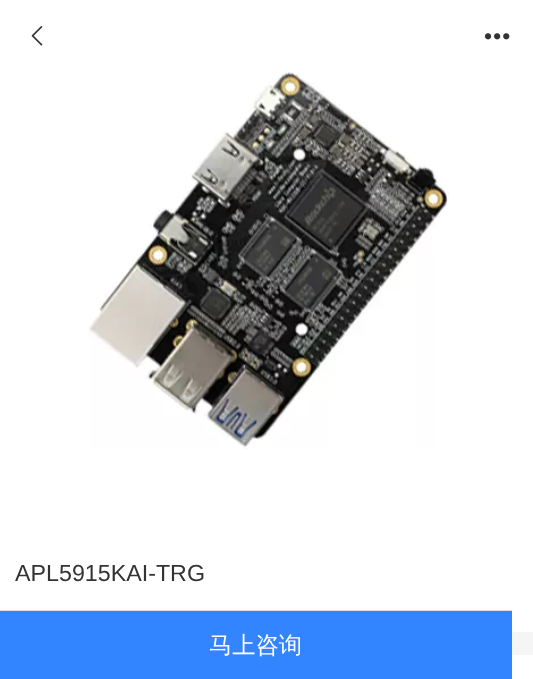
async function draw(canvas) {
  canvas.width = 533;
  canvas.height = 679;
  const ctx = canvas.getContext('2d');
  ctx.miterLimit = 4;
  ctx.fontKerning = 'normal';
  function label(s, x, y, font, color) {
    ctx.font = font;
    ctx.fillStyle = color;
    ctx.fillText(s, x, y);
  }
  function rect(x, y, w, h, color) {
    ctx.fillStyle = color;
    ctx.fillRect(x, y, w, h);
  }
  async function image(src, x, y, w, h) {
    const img = new Image();
    img.src = src;
    await img.decode();
    ctx.drawImage(img, x, y, w, h);
  }

  rect(0, 0, 533, 679, '#fff');
  await image('assets/img1.png', 31, 26, 12, 20);
  await image('assets/img2.png', 484, 33, 26, 7);
  await image('assets/img3.png', 88, 72, 361, 377);
  label('APL5915KAI-TRG', 15, 581, '23.25px Liberation Sans', '#333');
  rect(0, 610, 512, 1, '#ddd');
  rect(0, 611, 512, 68, '#3285ff');
  label('马上咨询', 209, 653, '500 23.25px WenQuanYi Zen Hei', '#fff');
  rect(512, 632, 21, 23, '#f5f5f5');
}

draw(document.querySelector('canvas'));
